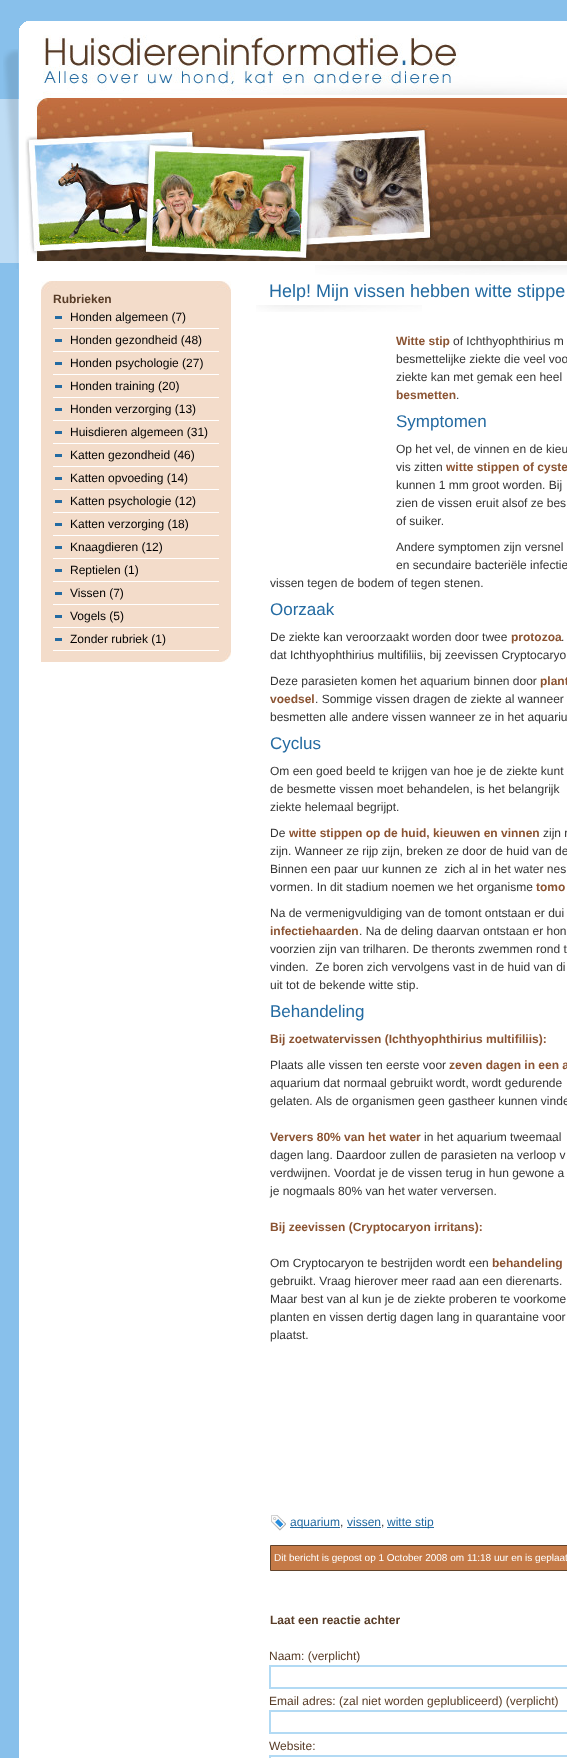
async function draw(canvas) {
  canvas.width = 567;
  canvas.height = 1758;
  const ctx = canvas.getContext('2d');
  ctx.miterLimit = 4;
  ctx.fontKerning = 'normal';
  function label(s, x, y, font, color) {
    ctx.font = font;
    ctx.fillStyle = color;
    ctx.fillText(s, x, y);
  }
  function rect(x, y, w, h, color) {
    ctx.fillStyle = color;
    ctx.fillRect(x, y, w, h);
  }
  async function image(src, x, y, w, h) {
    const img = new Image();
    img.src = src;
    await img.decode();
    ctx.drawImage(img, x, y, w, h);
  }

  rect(0, 0, 567, 1758, '#88c0eb');
  rect(0, 99, 19, 164, '#bedcf4');
  await image('assets/img1.png', 3, 49, 15, 220);
  await image('assets/img2.png', 19, 21, 548, 11);
  rect(19, 32, 548, 1726, '#fff');
  await image('assets/img3.png', 25, 35, 542, 226);
  await image('assets/img4.png', 315, 265, 252, 10);
  await image('assets/img5.png', 41, 281, 190, 11);
  rect(41, 292, 190, 359, '#f3dcca');
  label('Rubrieken', 53, 303, 'bold 12px Liberation Sans', '#583c27');
  rect(53, 328, 166, 1, '#fff');
  rect(55, 316, 7, 3, '#246ba2');
  label('Honden algemeen (7)', 70, 321, '12px Liberation Sans', '#000');
  rect(53, 351, 166, 1, '#fff');
  rect(55, 339, 7, 3, '#246ba2');
  label('Honden gezondheid (48)', 70, 344, '12px Liberation Sans', '#000');
  rect(53, 374, 166, 1, '#fff');
  rect(55, 362, 7, 3, '#246ba2');
  label('Honden psychologie (27)', 70, 367, '12px Liberation Sans', '#000');
  rect(53, 397, 166, 1, '#fff');
  rect(55, 385, 7, 3, '#246ba2');
  label('Honden training (20)', 70, 390, '12px Liberation Sans', '#000');
  rect(53, 420, 166, 1, '#fff');
  rect(55, 408, 7, 3, '#246ba2');
  label('Honden verzorging (13)', 70, 413, '12px Liberation Sans', '#000');
  rect(53, 443, 166, 1, '#fff');
  rect(55, 431, 7, 3, '#246ba2');
  label('Huisdieren algemeen (31)', 70, 436, '12px Liberation Sans', '#000');
  rect(53, 466, 166, 1, '#fff');
  rect(55, 454, 7, 3, '#246ba2');
  label('Katten gezondheid (46)', 70, 459, '12px Liberation Sans', '#000');
  rect(53, 489, 166, 1, '#fff');
  rect(55, 477, 7, 3, '#246ba2');
  label('Katten opvoeding (14)', 70, 482, '12px Liberation Sans', '#000');
  rect(53, 512, 166, 1, '#fff');
  rect(55, 500, 7, 3, '#246ba2');
  label('Katten psychologie (12)', 70, 505, '12px Liberation Sans', '#000');
  rect(53, 535, 166, 1, '#fff');
  rect(55, 523, 7, 3, '#246ba2');
  label('Katten verzorging (18)', 70, 528, '12px Liberation Sans', '#000');
  rect(53, 558, 166, 1, '#fff');
  rect(55, 546, 7, 3, '#246ba2');
  label('Knaagdieren (12)', 70, 551, '12px Liberation Sans', '#000');
  rect(53, 581, 166, 1, '#fff');
  rect(55, 569, 7, 3, '#246ba2');
  label('Reptielen (1)', 70, 574, '12px Liberation Sans', '#000');
  rect(53, 604, 166, 1, '#fff');
  rect(55, 592, 7, 3, '#246ba2');
  label('Vissen (7)', 70, 597, '12px Liberation Sans', '#000');
  rect(53, 627, 166, 1, '#fff');
  rect(55, 615, 7, 3, '#246ba2');
  label('Vogels (5)', 70, 620, '12px Liberation Sans', '#000');
  rect(53, 650, 166, 1, '#fff');
  rect(55, 638, 7, 3, '#246ba2');
  label('Zonder rubriek (1)', 70, 643, '12px Liberation Sans', '#000');
  await image('assets/img6.png', 41, 651, 190, 11);
  label('Help! Mijn vissen hebben witte stippe', 269, 297, '18px Liberation Sans', '#246ba2');
  await image('assets/img7.png', 256, 305, 166, 7);
  label('Witte stip', 396, 345, 'bold 12px Liberation Sans', '#8b5433');
  label('of Ichthyophthirius m', 453, 345, '12px Liberation Sans', '#343434');
  label('besmettelijke ziekte die veel voo', 396, 363, '12px Liberation Sans', '#343434');
  label('ziekte kan met gemak een heel', 396, 381, '12px Liberation Sans', '#343434');
  label('besmetten', 396, 399, 'bold 12px Liberation Sans', '#8b5433');
  label('.', 456, 399, '12px Liberation Sans', '#343434');
  label('Symptomen', 396, 427, '17px Liberation Sans', '#246ba2');
  label('Op het vel, de vinnen en de kieu', 396, 453, '12px Liberation Sans', '#343434');
  label('vis zitten', 396, 471, '12px Liberation Sans', '#343434');
  label('witte stippen of cyste', 446, 471, 'bold 12px Liberation Sans', '#8b5433');
  label('kunnen 1 mm groot worden. Bij', 396, 489, '12px Liberation Sans', '#343434');
  label('zien de vissen eruit alsof ze bes', 396, 507, '12px Liberation Sans', '#343434');
  label('of suiker.', 396, 525, '12px Liberation Sans', '#343434');
  label('Andere symptomen zijn versnel', 396, 551, '12px Liberation Sans', '#343434');
  label('en secundaire bacteriële infectie', 396, 569, '12px Liberation Sans', '#343434');
  label('vissen tegen de bodem of tegen stenen.', 270, 587, '12px Liberation Sans', '#343434');
  label('Oorzaak', 270, 615, '17px Liberation Sans', '#246ba2');
  label('De ziekte kan veroorzaakt worden door twee', 270, 641, '12px Liberation Sans', '#343434');
  label('protozoa', 511, 641, 'bold 12px Liberation Sans', '#8b5433');
  label('.', 561, 641, '12px Liberation Sans', '#343434');
  label('dat Ichthyophthirius multifiliis, bij zeevissen Cryptocaryo', 270, 659, '12px Liberation Sans', '#343434');
  label('Deze parasieten komen het aquarium binnen door', 270, 685, '12px Liberation Sans', '#343434');
  label('plant', 540, 685, 'bold 12px Liberation Sans', '#8b5433');
  label('voedsel', 270, 703, 'bold 12px Liberation Sans', '#8b5433');
  label('. Sommige vissen dragen de ziekte al wanneer', 315, 703, '12px Liberation Sans', '#343434');
  label('besmetten alle andere vissen wanneer ze in het aquariu', 270, 721, '12px Liberation Sans', '#343434');
  label('Cyclus', 270, 749, '17px Liberation Sans', '#246ba2');
  label('Om een goed beeld te krijgen van hoe je de ziekte kunt', 270, 775, '12px Liberation Sans', '#343434');
  label('de besmette vissen moet behandelen, is het belangrijk', 270, 793, '12px Liberation Sans', '#343434');
  label('ziekte helemaal begrijpt.', 270, 811, '12px Liberation Sans', '#343434');
  label('De', 270, 837, '12px Liberation Sans', '#343434');
  label('witte stippen op de huid, kieuwen en vinnen', 289, 837, 'bold 12px Liberation Sans', '#8b5433');
  label('zijn r', 543, 837, '12px Liberation Sans', '#343434');
  label('zijn. Wanneer ze rijp zijn, breken ze door de huid van de', 270, 855, '12px Liberation Sans', '#343434');
  label('Binnen een paar uur kunnen ze  zich al in het water nes', 270, 873, '12px Liberation Sans', '#343434');
  label('vormen. In dit stadium noemen we het organisme', 270, 891, '12px Liberation Sans', '#343434');
  label('tomo', 536, 891, 'bold 12px Liberation Sans', '#8b5433');
  label('Na de vermenigvuldiging van de tomont ontstaan er dui', 270, 917, '12px Liberation Sans', '#343434');
  label('infectiehaarden', 270, 935, 'bold 12px Liberation Sans', '#8b5433');
  label('. Na de deling daarvan ontstaan er hon', 359, 935, '12px Liberation Sans', '#343434');
  label('voorzien zijn van trilharen. De theronts zwemmen rond t', 270, 953, '12px Liberation Sans', '#343434');
  label('vinden.  Ze boren zich vervolgens vast in de huid van di', 270, 971, '12px Liberation Sans', '#343434');
  label('uit tot de bekende witte stip.', 270, 989, '12px Liberation Sans', '#343434');
  label('Behandeling', 270, 1017, '17px Liberation Sans', '#246ba2');
  label('Bij zoetwatervissen (Ichthyophthirius multifiliis):', 270, 1043, 'bold 12px Liberation Sans', '#8b5433');
  label('Plaats alle vissen ten eerste voor', 270, 1069, '12px Liberation Sans', '#343434');
  label('zeven dagen in een a', 449, 1069, 'bold 12px Liberation Sans', '#8b5433');
  label('aquarium dat normaal gebruikt wordt, wordt gedurende', 270, 1087, '12px Liberation Sans', '#343434');
  label('gelaten. Als de organismen geen gastheer kunnen vinde', 270, 1105, '12px Liberation Sans', '#343434');
  label('Ververs 80% van het water', 270, 1141, 'bold 12px Liberation Sans', '#8b5433');
  label('in het aquarium tweemaal', 424, 1141, '12px Liberation Sans', '#343434');
  label('dagen lang. Daardoor zullen de parasieten na verloop v', 270, 1159, '12px Liberation Sans', '#343434');
  label('verdwijnen. Voordat je de vissen terug in hun gewone a', 270, 1177, '12px Liberation Sans', '#343434');
  label('je nogmaals 80% van het water verversen.', 270, 1195, '12px Liberation Sans', '#343434');
  label('Bij zeevissen (Cryptocaryon irritans):', 270, 1231, 'bold 12px Liberation Sans', '#8b5433');
  label('Om Cryptocaryon te bestrijden wordt een', 270, 1267, '12px Liberation Sans', '#343434');
  label('behandeling', 492, 1267, 'bold 12px Liberation Sans', '#8b5433');
  label('gebruikt. Vraag hierover meer raad aan een dierenarts.', 270, 1285, '12px Liberation Sans', '#343434');
  label('Maar best van al kun je de ziekte proberen te voorkome', 270, 1303, '12px Liberation Sans', '#343434');
  label('planten en vissen dertig dagen lang in quarantaine voor', 270, 1321, '12px Liberation Sans', '#343434');
  label('plaatst.', 270, 1339, '12px Liberation Sans', '#343434');
  await image('assets/img8.png', 271, 1515, 15, 16);
  rect(290, 1527, 50, 1, '#246ba2');
  label('aquarium', 290, 1526, '12px Liberation Sans', '#246ba2');
  label(',', 340, 1526, '12px Liberation Sans', '#343434');
  label('vissen', 347, 1526, '12px Liberation Sans', '#246ba2');
  rect(347, 1527, 34, 1, '#246ba2');
  label(',', 381, 1526, '12px Liberation Sans', '#343434');
  rect(387, 1527, 47, 1, '#246ba2');
  label('witte stip', 387, 1526, '12px Liberation Sans', '#246ba2');
  ctx.fillStyle = '#c57a47';
  ctx.beginPath();
  ctx.rect(270.5, 1545.5, 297, 25);
  ctx.fill();
  ctx.strokeStyle = '#61432b';
  ctx.stroke();
  label('Dit bericht is gepost op 1 October 2008 om 11:18 uur en is geplaat', 274, 1561, '10px Liberation Sans', '#fff');
  label('Laat een reactie achter', 270, 1624, 'bold 12px Liberation Sans', '#583c27');
  label('Naam: (verplicht)', 269, 1660, '12px Liberation Sans', '#583c27');
  ctx.strokeStyle = '#b2daf4';
  ctx.lineWidth = 2;
  ctx.strokeRect(270, 1666, 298, 22);
  label('Email adres: (zal niet worden geplubliceerd) (verplicht)', 269, 1705, '12px Liberation Sans', '#583c27');
  ctx.strokeRect(270, 1711, 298, 22);
  label('Website:', 269, 1750, '12px Liberation Sans', '#583c27');
  ctx.strokeRect(270, 1756, 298, 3);
}

draw(document.querySelector('canvas'));
